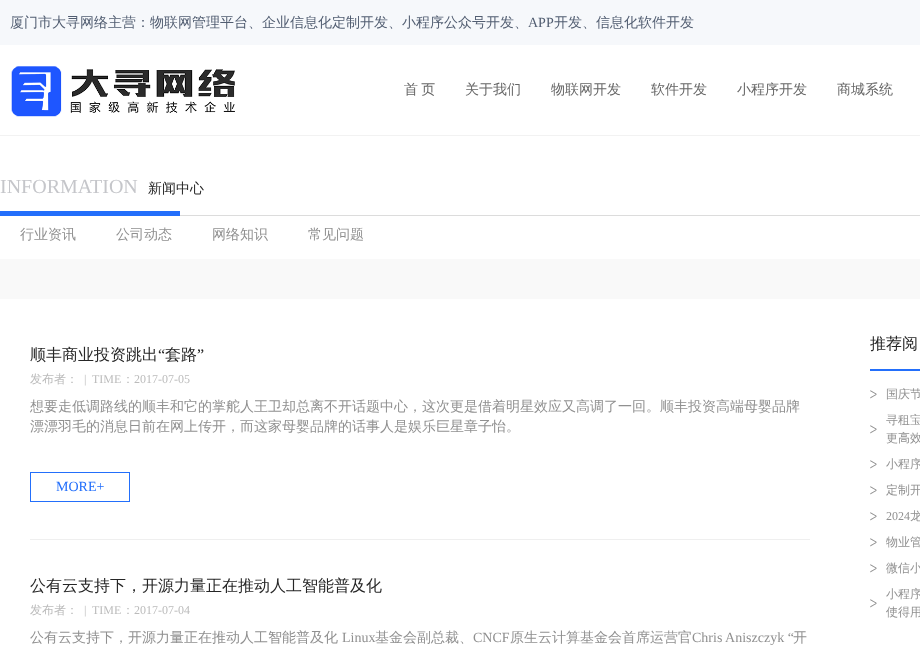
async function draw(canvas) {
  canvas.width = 920;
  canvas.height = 648;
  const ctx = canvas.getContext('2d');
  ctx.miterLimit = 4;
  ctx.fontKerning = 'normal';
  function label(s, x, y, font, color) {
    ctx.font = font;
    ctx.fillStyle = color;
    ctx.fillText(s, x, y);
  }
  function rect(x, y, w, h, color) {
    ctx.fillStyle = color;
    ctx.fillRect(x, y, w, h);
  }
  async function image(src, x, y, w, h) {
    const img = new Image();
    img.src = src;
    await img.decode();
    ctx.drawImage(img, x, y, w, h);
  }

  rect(0, 0, 920, 648, '#fff');
  rect(0, 0, 920, 45, '#f6f8fb');
  label('厦门市大寻网络主营：物联网管理平台、企业信息化定制开发、小程序公众号开发、', 10, 27, '500 14px WenQuanYi Zen Hei', '#515d71');
  label('APP', 528, 27, '14px Liberation Serif', '#515d71');
  label('开发、信息化软件开发', 554, 27, '500 14px WenQuanYi Zen Hei', '#515d71');
  await image('assets/img1.png', 11, 66, 224, 51);
  ctx.wordSpacing = '-1px';
  label('首 页', 404, 94, '500 14px WenQuanYi Zen Hei', '#666');
  ctx.wordSpacing = '0px';
  label('关于我们', 465, 94, '500 14px WenQuanYi Zen Hei', '#666');
  label('物联网开发', 551, 94, '500 14px WenQuanYi Zen Hei', '#666');
  label('软件开发', 651, 94, '500 14px WenQuanYi Zen Hei', '#666');
  label('小程序开发', 737, 94, '500 14px WenQuanYi Zen Hei', '#666');
  label('商城系统', 837, 94, '500 14px WenQuanYi Zen Hei', '#666');
  rect(0, 135, 920, 1, '#f2f2f2');
  rect(180, 215, 740, 1, '#dcdcdc');
  label('INFORMATION', 0, 193, '20px Liberation Serif', '#c5c6ca');
  label('新闻中心', 148, 193, '500 14px WenQuanYi Zen Hei', '#262626');
  rect(0, 211, 180, 5, '#236ffb');
  label('行业资讯', 20, 239, '500 14px WenQuanYi Zen Hei', '#909090');
  label('公司动态', 116, 239, '500 14px WenQuanYi Zen Hei', '#909090');
  label('网络知识', 212, 239, '500 14px WenQuanYi Zen Hei', '#909090');
  label('常见问题', 308, 239, '500 14px WenQuanYi Zen Hei', '#909090');
  rect(0, 259, 920, 40, '#f9f9f9');
  rect(30, 539, 780, 1, '#efefef');
  label('顺丰商业投资跳出', 30, 360, '500 16px WenQuanYi Zen Hei', '#262626');
  label('“', 158, 360, '16px Liberation Serif', '#262626');
  label('套路', 165, 360, '500 16px WenQuanYi Zen Hei', '#262626');
  label('”', 197, 360, '16px Liberation Serif', '#262626');
  label('发布者：', 30, 383, '500 12px WenQuanYi Zen Hei', '#bbb');
  label('|', 84, 383, '12px Liberation Serif', '#bbb');
  label('TIME', 92, 383, '12px Liberation Serif', '#bbb');
  label('：', 122, 383, '500 12px WenQuanYi Zen Hei', '#bbb');
  label('2017-07-05', 134, 383, '12px Liberation Serif', '#bbb');
  label('想要走低调路线的顺丰和它的掌舵人王卫却总离不开话题中心，这次更是借着明星效应又高调了一回。顺丰投资高端母婴品牌', 30, 411, '500 14px WenQuanYi Zen Hei', '#909090');
  label('漂漂羽毛的消息日前在网上传开，而这家母婴品牌的话事人是娱乐巨星章子怡。', 30, 431, '500 14px WenQuanYi Zen Hei', '#909090');
  ctx.strokeStyle = '#236ffb';
  ctx.strokeRect(30.5, 472.5, 99, 29);
  label('MORE+', 56, 491, '14px Liberation Serif', '#236ffb');
  label('公有云支持下，开源力量正在推动人工智能普及化', 30, 591, '500 16px WenQuanYi Zen Hei', '#262626');
  label('发布者：', 30, 614, '500 12px WenQuanYi Zen Hei', '#bbb');
  label('|', 84, 614, '12px Liberation Serif', '#bbb');
  label('TIME', 92, 614, '12px Liberation Serif', '#bbb');
  label('：', 122, 614, '500 12px WenQuanYi Zen Hei', '#bbb');
  label('2017-07-04', 134, 614, '12px Liberation Serif', '#bbb');
  label('公有云支持下，开源力量正在推动人工智能普及化', 30, 642, '500 14px WenQuanYi Zen Hei', '#909090');
  label('Linux', 342, 642, '14px Liberation Serif', '#909090');
  label('基金会副总裁、', 375, 642, '500 14px WenQuanYi Zen Hei', '#909090');
  label('CNCF', 473, 642, '14px Liberation Serif', '#909090');
  label('原生云计算基金会首席运营官', 510, 642, '500 14px WenQuanYi Zen Hei', '#909090');
  label('Chris Aniszczyk “', 692, 642, '14px Liberation Serif', '#909090');
  label('开', 793, 642, '500 14px WenQuanYi Zen Hei', '#909090');
  label('推荐阅', 870, 349, '500 16px WenQuanYi Zen Hei', '#262626');
  rect(870, 369, 50, 2, '#236ffb');
  await image('assets/img2.png', 870, 390, 7, 9);
  label('国庆节', 886, 398, '500 12px WenQuanYi Zen Hei', '#909090');
  await image('assets/img2.png', 870, 425, 7, 9);
  label('寻租宝', 886, 424, '500 12px WenQuanYi Zen Hei', '#909090');
  label('更高效', 886, 442, '500 12px WenQuanYi Zen Hei', '#909090');
  await image('assets/img2.png', 870, 460, 7, 9);
  label('小程序', 886, 468, '500 12px WenQuanYi Zen Hei', '#909090');
  await image('assets/img2.png', 870, 486, 7, 9);
  label('定制开', 886, 494, '500 12px WenQuanYi Zen Hei', '#909090');
  await image('assets/img2.png', 870, 512, 7, 9);
  label('2024', 886, 520, '12px Liberation Serif', '#909090');
  label('龙', 910, 520, '500 12px WenQuanYi Zen Hei', '#909090');
  await image('assets/img2.png', 870, 538, 7, 9);
  label('物业管', 886, 546, '500 12px WenQuanYi Zen Hei', '#909090');
  await image('assets/img2.png', 870, 564, 7, 9);
  label('微信小', 886, 572, '500 12px WenQuanYi Zen Hei', '#909090');
  await image('assets/img2.png', 870, 599, 7, 9);
  label('小程序', 886, 598, '500 12px WenQuanYi Zen Hei', '#909090');
  label('使得用', 886, 616, '500 12px WenQuanYi Zen Hei', '#909090');
}

draw(document.querySelector('canvas'));
